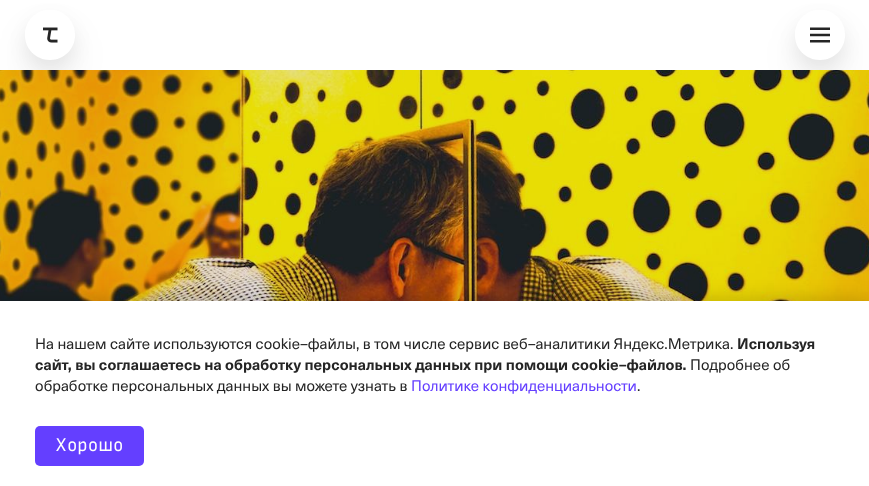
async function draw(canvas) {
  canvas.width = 869;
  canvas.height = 486;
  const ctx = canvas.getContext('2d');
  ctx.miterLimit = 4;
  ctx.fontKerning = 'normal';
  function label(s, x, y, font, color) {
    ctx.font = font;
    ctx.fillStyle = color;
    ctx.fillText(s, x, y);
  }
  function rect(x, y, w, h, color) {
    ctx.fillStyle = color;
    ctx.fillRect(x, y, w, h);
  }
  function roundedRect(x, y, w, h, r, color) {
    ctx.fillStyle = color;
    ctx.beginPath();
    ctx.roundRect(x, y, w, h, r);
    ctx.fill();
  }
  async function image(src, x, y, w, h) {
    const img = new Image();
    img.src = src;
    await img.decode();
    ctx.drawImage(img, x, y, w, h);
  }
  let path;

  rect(0, 0, 869, 486, '#fff');
  ctx.save();
  path = new Path2D('M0 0H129V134H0ZM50 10C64 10 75 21 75 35C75 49 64 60 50 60C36 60 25 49 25 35C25 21 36 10 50 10Z');
  ctx.clip(path, 'evenodd');
  ctx.fillStyle = '#00000012';
  ctx.filter = 'blur(17.5px)';
  ctx.beginPath();
  ctx.roundRect(25, 30, 50, 50, 25);
  ctx.fill();
  ctx.filter = 'none';
  ctx.restore();
  ctx.save();
  path = new Path2D('M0 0H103V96H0ZM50 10C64 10 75 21 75 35C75 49 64 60 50 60C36 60 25 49 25 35C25 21 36 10 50 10Z');
  ctx.clip(path, 'evenodd');
  ctx.fillStyle = '#0000000f';
  ctx.filter = 'blur(9px)';
  ctx.beginPath();
  ctx.roundRect(25, 18, 50, 50, 25);
  ctx.fill();
  ctx.filter = 'none';
  ctx.restore();
  await image('assets/img1.png', 43, 27, 15, 16);
  ctx.save();
  path = new Path2D('M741 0H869V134H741ZM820 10C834 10 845 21 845 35C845 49 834 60 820 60C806 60 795 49 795 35C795 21 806 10 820 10Z');
  ctx.clip(path, 'evenodd');
  ctx.fillStyle = '#00000012';
  ctx.filter = 'blur(17.5px)';
  ctx.beginPath();
  ctx.roundRect(795, 30, 50, 50, 25);
  ctx.fill();
  ctx.filter = 'none';
  ctx.restore();
  ctx.save();
  path = new Path2D('M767 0H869V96H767ZM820 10C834 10 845 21 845 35C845 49 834 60 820 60C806 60 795 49 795 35C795 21 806 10 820 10Z');
  ctx.clip(path, 'evenodd');
  ctx.fillStyle = '#0000000f';
  ctx.filter = 'blur(9px)';
  ctx.beginPath();
  ctx.roundRect(795, 18, 50, 50, 25);
  ctx.fill();
  ctx.filter = 'none';
  ctx.restore();
  await image('assets/img2.png', 810, 27, 20, 16);
  await image('assets/img3.png', 0, 70, 869, 231);
  ctx.fillStyle = '#00000033';
  ctx.filter = 'blur(10px)';
  ctx.beginPath();
  ctx.rect(0, 301, 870, 185);
  ctx.fill();
  ctx.filter = 'none';
  rect(0, 301, 869, 185, '#fff');
  label('На нашем сайте используются cookie–файлы, в том числе сервис веб–аналитики Яндекс.Метрика.', 35, 349, '15px "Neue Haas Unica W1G"', '#252525');
  label('Используя', 737, 349, 'bold 15px "Neue Haas Unica W1G"', '#252525');
  label('сайт, вы соглашаетесь на обработку персональных данных при помощи cookie–файлов.', 35, 370, 'bold 15px "Neue Haas Unica W1G"', '#252525');
  label('Подробнее об', 690, 370, '15px "Neue Haas Unica W1G"', '#252525');
  label('обработке персональных данных вы можете узнать в', 35, 391, '15px "Neue Haas Unica W1G"', '#252525');
  label('Политике конфиденциальности', 411, 391, '15px "Neue Haas Unica W1G"', '#643fff');
  label('.', 637, 391, '15px "Neue Haas Unica W1G"', '#252525');
  roundedRect(35, 426, 109, 40, 5, '#643fff');
  label('Хорошо', 55, 451, '17.5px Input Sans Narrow', '#fff');
}

draw(document.querySelector('canvas'));
